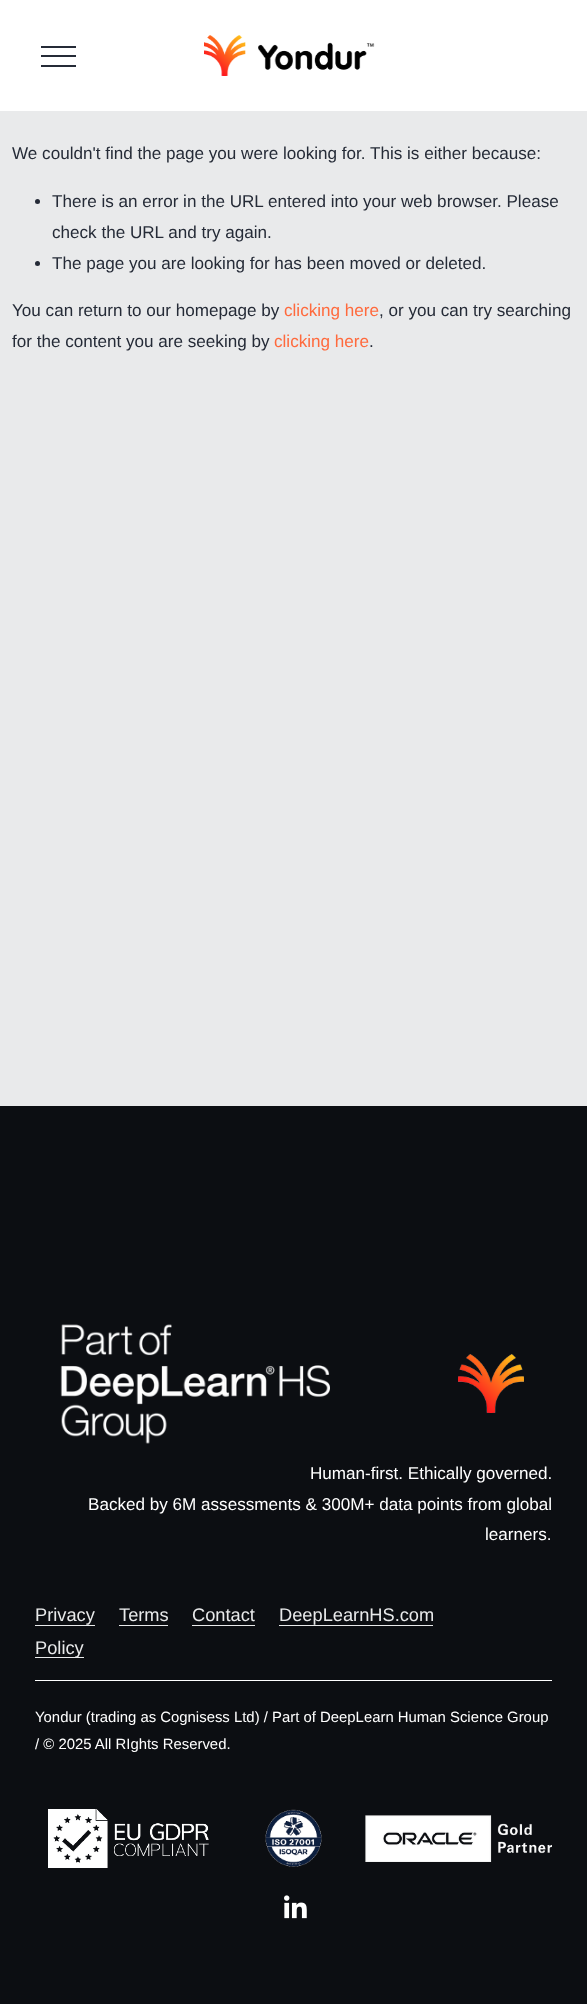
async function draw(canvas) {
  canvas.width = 587;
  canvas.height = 2004;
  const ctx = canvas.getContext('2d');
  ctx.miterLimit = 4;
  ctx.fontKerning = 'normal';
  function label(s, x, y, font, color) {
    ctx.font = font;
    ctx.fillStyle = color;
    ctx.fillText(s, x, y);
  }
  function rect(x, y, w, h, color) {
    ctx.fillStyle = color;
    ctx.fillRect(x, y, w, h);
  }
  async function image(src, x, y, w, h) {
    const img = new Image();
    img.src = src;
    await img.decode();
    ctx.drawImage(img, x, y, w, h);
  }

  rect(0, 0, 587, 2004, '#e9eaeb');
  rect(0, 0, 587, 111, '#fff');
  rect(41, 46, 35, 2, '#252b37');
  rect(41, 55, 35, 2, '#252b37');
  rect(41, 65, 35, 2, '#252b37');
  await image('assets/img1.png', 204, 35, 171, 41);
  label('We couldn\'t find the page you were looking for. This is either because:', 12, 159, '17.1px Liberation Sans', '#252b37');
  ctx.beginPath();
  ctx.arc(37.5, 201.5, 2.5, 0, 2 * Math.PI);
  ctx.fill();
  label('There is an error in the URL entered into your web browser. Please', 52, 207, '17.1px Liberation Sans', '#252b37');
  label('check the URL and try again.', 52, 238, '17.1px Liberation Sans', '#252b37');
  ctx.beginPath();
  ctx.arc(37.5, 263.5, 2.5, 0, 2 * Math.PI);
  ctx.fill();
  label('The page you are looking for has been moved or deleted.', 52, 269, '17.1px Liberation Sans', '#252b37');
  label('You can return to our homepage by', 12, 316, '17.1px Liberation Sans', '#252b37');
  label('clicking here', 284, 316, '17.1px Liberation Sans', '#ff6a3d');
  label(', or you can try searching', 379, 316, '17.1px Liberation Sans', '#252b37');
  label('for the content you are seeking by', 12, 347, '17.1px Liberation Sans', '#252b37');
  label('clicking here', 274, 347, '17.1px Liberation Sans', '#ff6a3d');
  label('.', 369, 347, '17.1px Liberation Sans', '#252b37');
  rect(0, 1106, 587, 898, '#0c0e12');
  await image('assets/img2.png', 60, 1324, 270, 120);
  await image('assets/img3.png', 458, 1354, 66, 59);
  label('Human-first. Ethically governed.', 310, 1479, '17.1px Liberation Sans', '#fff');
  label('Backed by 6M assessments & 300M+ data points from global', 88, 1510, '17.1px Liberation Sans', '#fff');
  label('learners.', 485, 1540, '17.1px Liberation Sans', '#fff');
  label('Privacy', 35, 1621, '18.25px Liberation Sans', '#e9eaeb');
  rect(35, 1625, 60, 1, '#e9eaeb');
  rect(35, 1657, 49, 1, '#e9eaeb');
  label('Policy', 35, 1654, '18.25px Liberation Sans', '#e9eaeb');
  label('Terms', 119, 1621, '18.25px Liberation Sans', '#e9eaeb');
  rect(119, 1625, 49, 1, '#e9eaeb');
  label('Contact', 192, 1621, '18.25px Liberation Sans', '#e9eaeb');
  rect(192, 1625, 63, 1, '#e9eaeb');
  label('DeepLearnHS.com', 279, 1621, '18.25px Liberation Sans', '#e9eaeb');
  rect(279, 1625, 154, 1, '#e9eaeb');
  rect(35, 1680, 517, 1, '#fff');
  label('Yondur (trading as Cognisess Ltd) / Part of DeepLearn Human Science Group', 35, 1722, '14.9px Liberation Sans', '#fff');
  label('/ © 2025 All RIghts Reserved.', 35, 1749, '14.9px Liberation Sans', '#fff');
  await image('assets/img4.png', 48, 1809, 161, 59);
  await image('assets/img5.png', 265, 1809, 57, 58);
  await image('assets/img6.png', 365, 1815, 187, 47);
  await image('assets/img7.png', 284, 1895, 23, 24);
}

draw(document.querySelector('canvas'));
